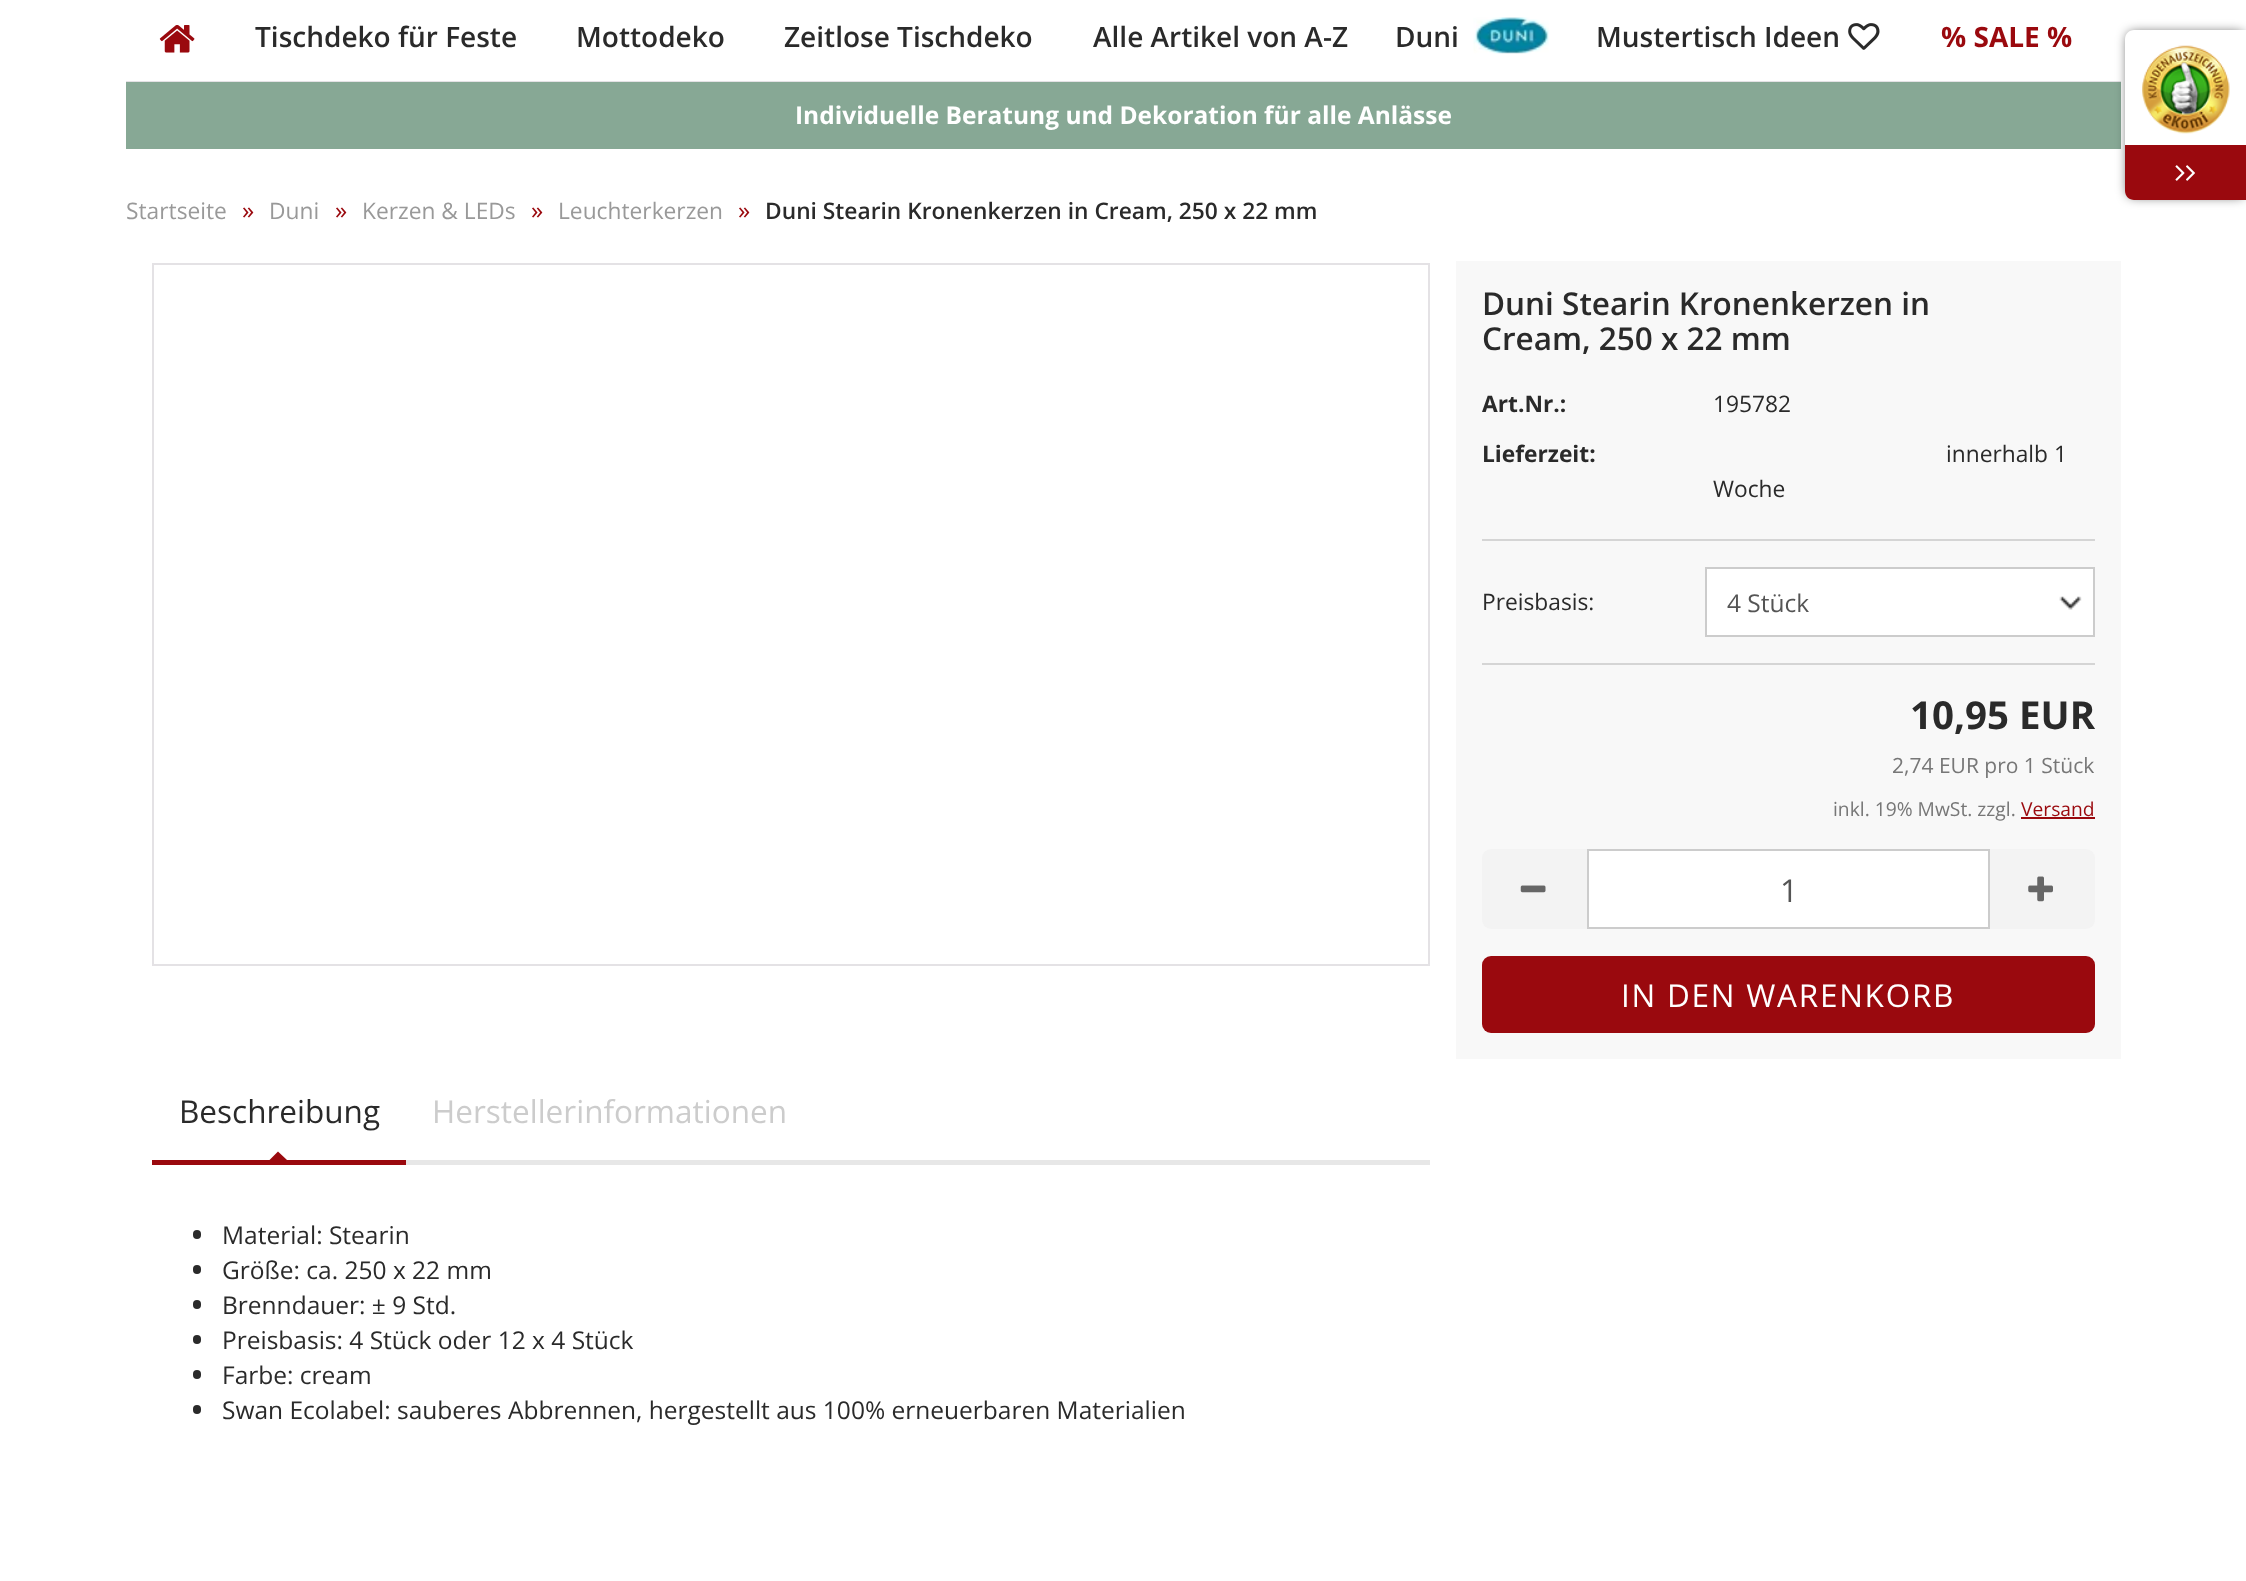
async function draw(canvas) {
  canvas.width = 2246;
  canvas.height = 1581;
  const ctx = canvas.getContext('2d');
  ctx.miterLimit = 4;
  ctx.fontKerning = 'normal';
  function label(s, x, y, font, color) {
    ctx.font = font;
    ctx.fillStyle = color;
    ctx.fillText(s, x, y);
  }
  function rect(x, y, w, h, color) {
    ctx.fillStyle = color;
    ctx.fillRect(x, y, w, h);
  }
  function roundedRect(x, y, w, h, r, color) {
    ctx.fillStyle = color;
    ctx.beginPath();
    ctx.roundRect(x, y, w, h, r);
    ctx.fill();
  }
  async function image(src, x, y, w, h) {
    const img = new Image();
    img.src = src;
    await img.decode();
    ctx.drawImage(img, x, y, w, h);
  }
  let path;

  rect(0, 0, 2246, 1581, '#fff');
  rect(126, 81, 1995, 1, '#e4e2e5');
  await image('assets/img1.png', 159, 25, 36, 28);
  label('Tischdeko für Feste', 255, 47, '600 28px Open Sans', '#2a2a2a');
  label('Mottodeko', 576, 47, '600 28px Open Sans', '#2a2a2a');
  label('Zeitlose Tischdeko', 784, 47, '600 28px Open Sans', '#2a2a2a');
  label('Alle Artikel von A-Z', 1093, 47, '600 28px Open Sans', '#2a2a2a');
  await image('assets/img2.png', 1473, 17, 76, 37);
  label('Duni', 1395, 47, '600 28px Open Sans', '#2a2a2a');
  label('Mustertisch Ideen', 1596, 47, '600 28px Open Sans', '#2a2a2a');
  await image('assets/img3.png', 1848, 23, 32, 27);
  label('% SALE %', 1941, 47, 'bold 28px Open Sans', '#9a090e');
  rect(126, 82, 1995, 67, '#87a895');
  ctx.fillStyle = '#000000bf';
  ctx.filter = 'blur(6px)';
  ctx.beginPath();
  ctx.roundRect(2128, 33, 116, 163, 5);
  ctx.fill();
  ctx.filter = 'none';
  ctx.fillStyle = '#fff';
  path = new Path2D('M2134 30H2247V200H2134C2129 200 2125 196 2125 191V39C2125 34 2129 30 2134 30Z');
  ctx.fill(path);
  await image('assets/img4.png', 2142, 45, 88, 89);
  ctx.fillStyle = '#9a090e';
  path = new Path2D('M2125 145H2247V200H2134C2129 200 2125 196 2125 191Z');
  ctx.fill(path);
  await image('assets/img5.png', 2175, 165, 10, 16);
  await image('assets/img6.png', 2186, 165, 9, 16);
  label('Individuelle Beratung und Dekoration für alle Anlässe', 795, 124, 'bold 24.5px Open Sans', '#fff');
  label('Startseite', 126, 219, '22.75px Open Sans', '#999');
  label('»', 242, 219, '24.5px Open Sans', '#9a090e');
  label('Duni', 269, 219, '22.75px Open Sans', '#999');
  label('»', 335, 219, '24.5px Open Sans', '#9a090e');
  label('Kerzen & LEDs', 362, 219, '22.75px Open Sans', '#999');
  label('»', 531, 219, '24.5px Open Sans', '#9a090e');
  label('Leuchterkerzen', 558, 219, '22.75px Open Sans', '#999');
  label('»', 738, 219, '24.5px Open Sans', '#9a090e');
  label('Duni Stearin Kronenkerzen in Cream, 250 x 22 mm', 765, 219, '600 22.75px Open Sans', '#2a2a2a');
  ctx.strokeStyle = '#e4e2e5';
  ctx.lineWidth = 2;
  ctx.strokeRect(153, 264, 1276, 701);
  rect(1456, 261, 665, 798, '#f8f8f8');
  label('Duni Stearin Kronenkerzen in', 1482, 315, '600 31.5px Open Sans', '#2a2a2a');
  label('Cream, 250 x 22 mm', 1482, 350, '600 31.5px Open Sans', '#2a2a2a');
  rect(1482, 539, 613, 2, '#d5d5d5');
  label('Art.Nr.:', 1482, 412, 'bold 22.75px Open Sans', '#2a2a2a');
  label('195782', 1713, 412, '22.75px Open Sans', '#2a2a2a');
  label('Lieferzeit:', 1482, 462, 'bold 22.75px Open Sans', '#2a2a2a');
  label('innerhalb 1', 1946, 462, '22.75px Open Sans', '#2a2a2a');
  label('Woche', 1713, 497, '22.75px Open Sans', '#2a2a2a');
  rect(1482, 663, 613, 2, '#d5d5d5');
  label('Preisbasis:', 1482, 610, '22.75px Open Sans', '#2a2a2a');
  rect(1707, 569, 386, 66, '#fff');
  await image('assets/img7.png', 2059, 596, 23, 14);
  ctx.strokeStyle = '#ccc';
  ctx.strokeRect(1706, 568, 388, 68);
  label('4 Stück', 1727, 612, '24.5px Open Sans', '#555');
  label('10,95 EUR', 1910, 729, 'bold 38.5px Open Sans', '#2a2a2a');
  label('2,74 EUR pro 1 Stück', 1892, 773, '21px Open Sans', '#777');
  label('inkl. 19% MwSt. zzgl.', 1833, 816, '19.25px Open Sans', '#777');
  label('Versand', 2021, 816, '19.25px Open Sans', '#9a090e');
  rect(2021, 817, 74, 2, '#9a090e');
  ctx.fillStyle = '#f3f3f3';
  ctx.beginPath();
  ctx.roundRect(1482, 849, 105, 80, [9, 0, 0, 9]);
  ctx.fill();
  await image('assets/img8.png', 1520, 885, 26, 8);
  ctx.fillStyle = '#fff';
  ctx.beginPath();
  ctx.rect(1588, 850, 401, 78);
  ctx.fill();
  ctx.stroke();
  label('1', 1780, 902, '31.5px Open Sans', '#555');
  ctx.fillStyle = '#f3f3f3';
  ctx.beginPath();
  ctx.roundRect(1990, 849, 105, 80, [0, 9, 9, 0]);
  ctx.fill();
  await image('assets/img9.png', 2028, 876, 25, 26);
  roundedRect(1482, 956, 613, 77, 9, '#9a090e');
  ctx.letterSpacing = '1.75px';
  label('IN DEN WARENKORB', 1621, 1007, '31.5px Open Sans', '#fff');
  rect(406, 1160, 1024, 5, '#e7e7e7');
  rect(152, 1160, 254, 5, '#9a090e');
  ctx.letterSpacing = '0px';
  label('Beschreibung', 179, 1123, '31.5px Open Sans', '#2a2a2a');
  ctx.fillStyle = '#9a090e';
  path = new Path2D('M287 1160H269.5L278 1151.5Z');
  ctx.fill(path);
  label('Herstellerinformationen', 432, 1123, '31.5px Open Sans', '#ccc');
  roundedRect(193, 1230, 8, 9, 4, '#2a2a2a');
  label('Material: Stearin', 222, 1244, '24.5px Open Sans', '#2a2a2a');
  roundedRect(193, 1265, 8, 9, 4, '#2a2a2a');
  label('Größe: ca. 250 x 22 mm', 222, 1279, '24.5px Open Sans', '#2a2a2a');
  roundedRect(193, 1300, 8, 9, 4, '#2a2a2a');
  label('Brenndauer: ± 9 Std.', 222, 1314, '24.5px Open Sans', '#2a2a2a');
  roundedRect(193, 1335, 8, 9, 4, '#2a2a2a');
  label('Preisbasis: 4 Stück oder 12 x 4 Stück', 222, 1349, '24.5px Open Sans', '#2a2a2a');
  roundedRect(193, 1370, 8, 9, 4, '#2a2a2a');
  label('Farbe: cream', 222, 1384, '24.5px Open Sans', '#2a2a2a');
  roundedRect(193, 1405, 8, 9, 4, '#2a2a2a');
  label('Swan Ecolabel: sauberes Abbrennen, hergestellt aus 100% erneuerbaren Materialien', 222, 1419, '24.5px Open Sans', '#2a2a2a');
}

draw(document.querySelector('canvas'));
